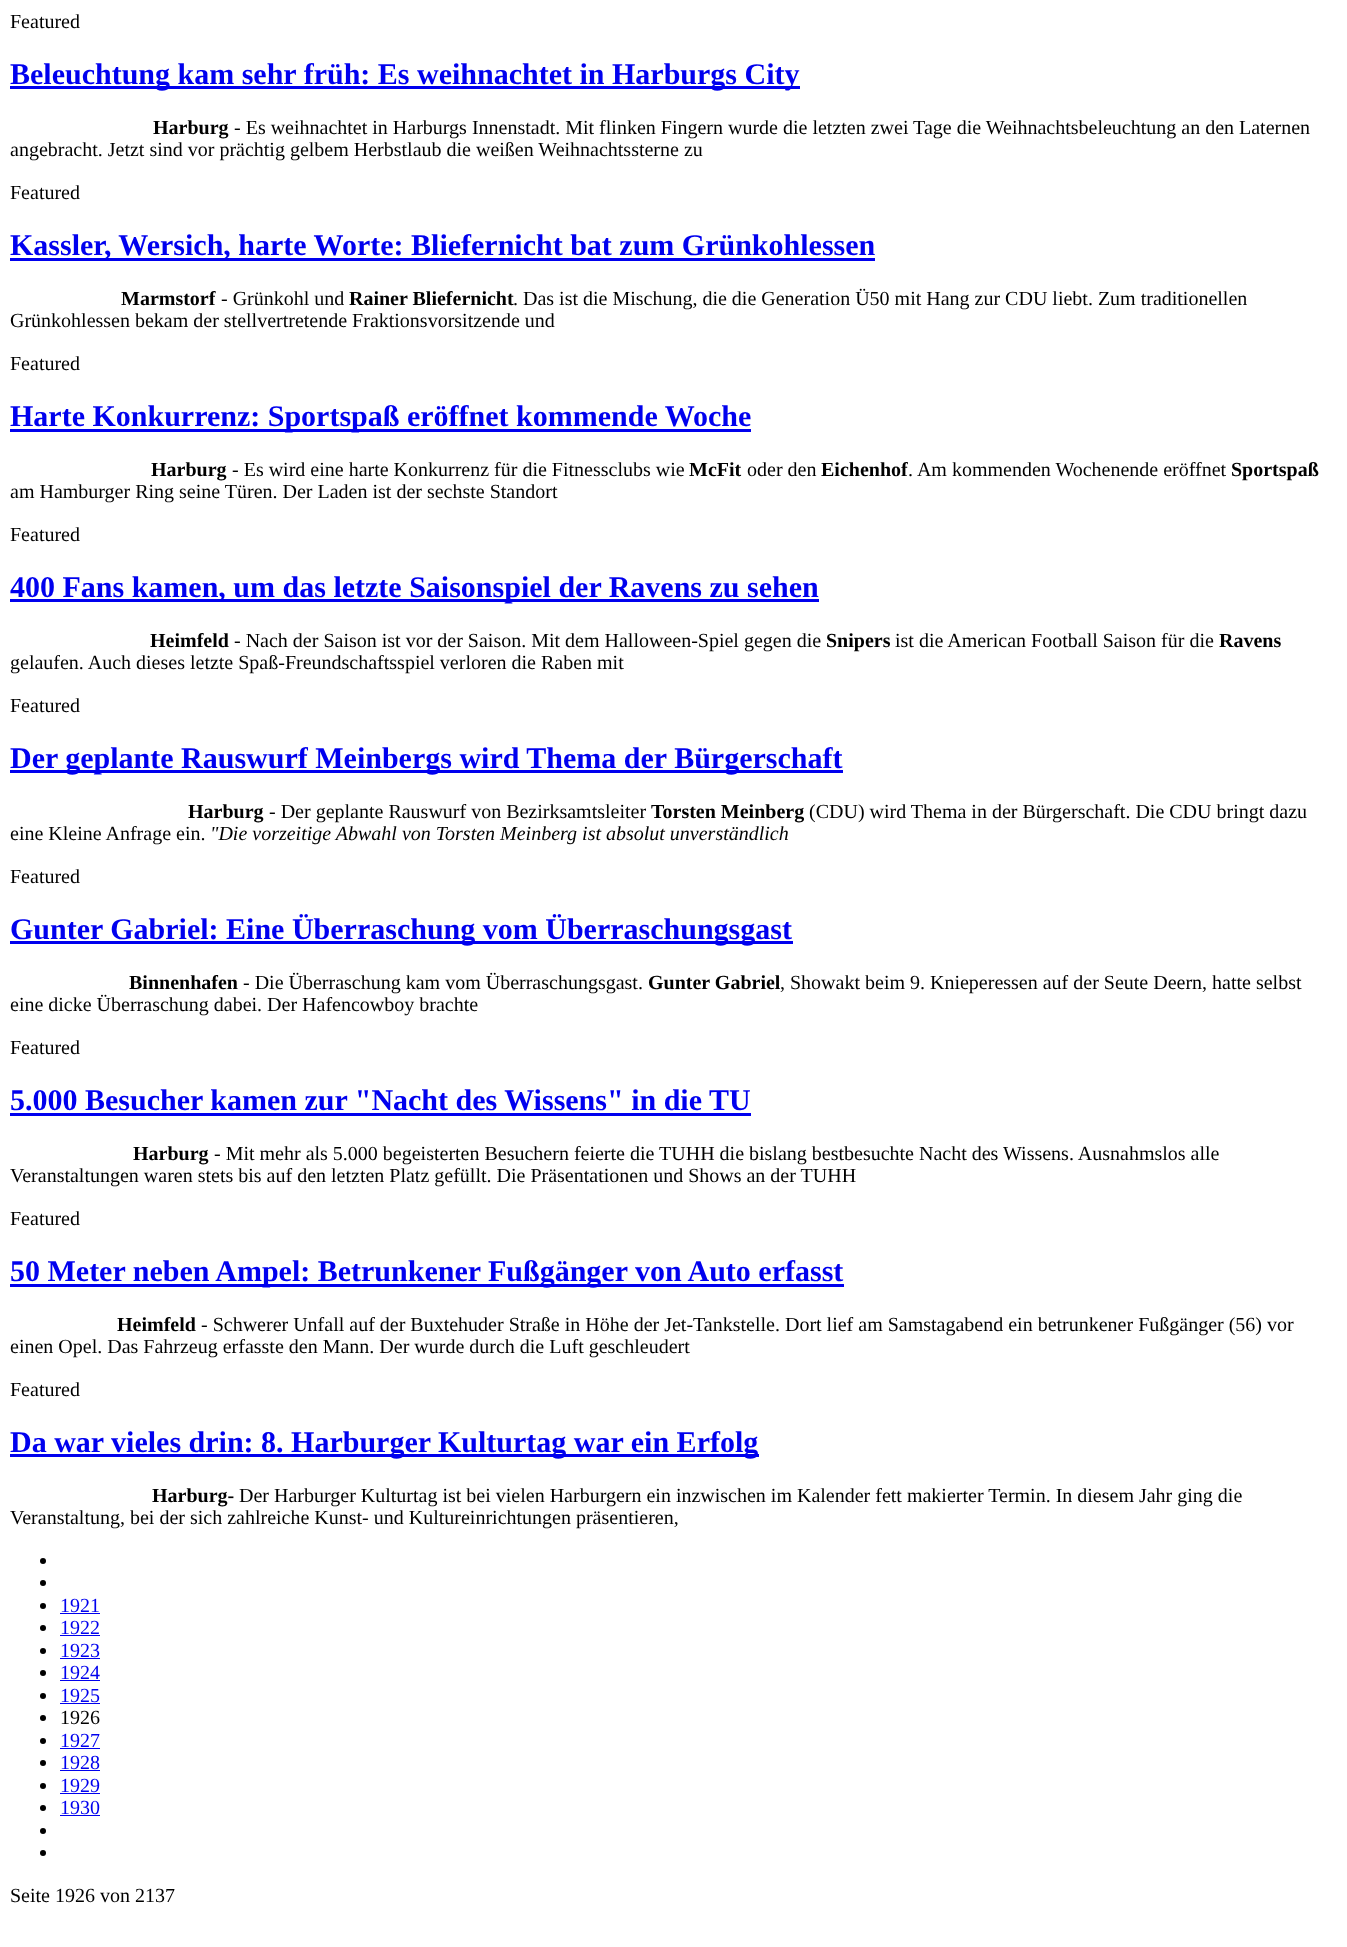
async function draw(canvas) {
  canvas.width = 1347;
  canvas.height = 1947;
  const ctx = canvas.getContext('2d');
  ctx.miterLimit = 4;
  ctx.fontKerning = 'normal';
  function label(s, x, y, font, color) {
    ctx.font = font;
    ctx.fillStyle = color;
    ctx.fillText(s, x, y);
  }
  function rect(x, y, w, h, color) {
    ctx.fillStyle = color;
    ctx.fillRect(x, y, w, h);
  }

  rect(0, 0, 1347, 1947, '#fff');
  label('Featured', 10, 28, '20px Liberation Serif', '#000');
  rect(10, 86, 790, 3, '#00e');
  label('Beleuchtung kam sehr früh: Es weihnachtet in Harburgs City', 10, 84, 'bold 30px Liberation Serif', '#00e');
  label('Harburg', 153, 134, 'bold 20px Liberation Serif', '#000');
  label('- Es weihnachtet in Harburgs Innenstadt. Mit flinken Fingern wurde die letzten zwei Tage die Weihnachtsbeleuchtung an den Laternen', 234, 134, '20px Liberation Serif', '#000');
  label('angebracht. Jetzt sind vor prächtig gelbem Herbstlaub die weißen Weihnachtssterne zu', 10, 156, '20px Liberation Serif', '#000');
  label('Featured', 10, 199, '20px Liberation Serif', '#000');
  rect(10, 258, 865, 3, '#00e');
  label('Kassler, Wersich, harte Worte: Bliefernicht bat zum Grünkohlessen', 10, 255, 'bold 30px Liberation Serif', '#00e');
  label('Marmstorf', 121, 305, 'bold 20px Liberation Serif', '#000');
  label('- Grünkohl und', 221, 305, '20px Liberation Serif', '#000');
  label('Rainer Bliefernicht', 349, 305, 'bold 20px Liberation Serif', '#000');
  label('. Das ist die Mischung, die die Generation Ü50 mit Hang zur CDU liebt. Zum traditionellen', 513, 305, '20px Liberation Serif', '#000');
  label('Grünkohlessen bekam der stellvertretende Fraktionsvorsitzende und', 10, 327, '20px Liberation Serif', '#000');
  label('Featured', 10, 370, '20px Liberation Serif', '#000');
  rect(10, 429, 741, 3, '#00e');
  label('Harte Konkurrenz: Sportspaß eröffnet kommende Woche', 10, 426, 'bold 30px Liberation Serif', '#00e');
  label('Harburg', 151, 476, 'bold 20px Liberation Serif', '#000');
  label('- Es wird eine harte Konkurrenz für die Fitnessclubs wie', 232, 476, '20px Liberation Serif', '#000');
  label('McFit', 689, 476, 'bold 20px Liberation Serif', '#000');
  label('oder den', 747, 476, '20px Liberation Serif', '#000');
  label('Eichenhof', 821, 476, 'bold 20px Liberation Serif', '#000');
  label('. Am kommenden Wochenende eröffnet', 908, 476, '20px Liberation Serif', '#000');
  label('Sportspaß', 1231, 476, 'bold 20px Liberation Serif', '#000');
  label('am Hamburger Ring seine Türen. Der Laden ist der sechste Standort', 10, 498, '20px Liberation Serif', '#000');
  label('Featured', 10, 541, '20px Liberation Serif', '#000');
  rect(10, 599, 809, 3, '#00e');
  label('400 Fans kamen, um das letzte Saisonspiel der Ravens zu sehen', 10, 597, 'bold 30px Liberation Serif', '#00e');
  label('Heimfeld', 150, 647, 'bold 20px Liberation Serif', '#000');
  label('- Nach der Saison ist vor der Saison. Mit dem Halloween-Spiel gegen die', 234, 647, '20px Liberation Serif', '#000');
  label('Snipers', 826, 647, 'bold 20px Liberation Serif', '#000');
  label('ist die American Football Saison für die', 895, 647, '20px Liberation Serif', '#000');
  label('Ravens', 1219, 647, 'bold 20px Liberation Serif', '#000');
  label('gelaufen. Auch dieses letzte Spaß-Freundschaftsspiel verloren die Raben mit', 10, 669, '20px Liberation Serif', '#000');
  label('Featured', 10, 712, '20px Liberation Serif', '#000');
  rect(10, 770, 833, 3, '#00e');
  label('Der geplante Rauswurf Meinbergs wird Thema der Bürgerschaft', 10, 768, 'bold 30px Liberation Serif', '#00e');
  label('Harburg', 188, 818, 'bold 20px Liberation Serif', '#000');
  label('- Der geplante Rauswurf von Bezirksamtsleiter', 269, 818, '20px Liberation Serif', '#000');
  label('Torsten Meinberg', 651, 818, 'bold 20px Liberation Serif', '#000');
  label('(CDU) wird Thema in der Bürgerschaft. Die CDU bringt dazu', 809, 818, '20px Liberation Serif', '#000');
  label('eine Kleine Anfrage ein.', 10, 840, '20px Liberation Serif', '#000');
  label('"Die vorzeitige Abwahl von Torsten Meinberg ist absolut unverständlich', 210, 840, 'italic 20px Liberation Serif', '#000');
  label('Featured', 10, 883, '20px Liberation Serif', '#000');
  rect(10, 941, 783, 3, '#00e');
  label('Gunter Gabriel: Eine Überraschung vom Überraschungsgast', 10, 939, 'bold 30px Liberation Serif', '#00e');
  label('Binnenhafen', 129, 989, 'bold 20px Liberation Serif', '#000');
  label('- Die Überraschung kam vom Überraschungsgast.', 243, 989, '20px Liberation Serif', '#000');
  label('Gunter Gabriel', 648, 989, 'bold 20px Liberation Serif', '#000');
  label(', Showakt beim 9. Knieperessen auf der Seute Deern, hatte selbst', 780, 989, '20px Liberation Serif', '#000');
  label('eine dicke Überraschung dabei. Der Hafencowboy brachte', 10, 1011, '20px Liberation Serif', '#000');
  label('Featured', 10, 1054, '20px Liberation Serif', '#000');
  label('5.000 Besucher kamen zur "Nacht des Wissens" in die TU', 10, 1110, 'bold 30px Liberation Serif', '#00e');
  rect(10, 1113, 741, 3, '#00e');
  label('Harburg', 133, 1160, 'bold 20px Liberation Serif', '#000');
  label('- Mit mehr als 5.000 begeisterten Besuchern feierte die TUHH die bislang bestbesuchte Nacht des Wissens. Ausnahmslos alle', 214, 1160, '20px Liberation Serif', '#000');
  label('Veranstaltungen waren stets bis auf den letzten Platz gefüllt. Die Präsentationen und Shows an der TUHH', 10, 1182, '20px Liberation Serif', '#000');
  label('Featured', 10, 1225, '20px Liberation Serif', '#000');
  rect(10, 1284, 834, 3, '#00e');
  label('50 Meter neben Ampel: Betrunkener Fußgänger von Auto erfasst', 10, 1281, 'bold 30px Liberation Serif', '#00e');
  label('Heimfeld', 117, 1331, 'bold 20px Liberation Serif', '#000');
  label('- Schwerer Unfall auf der Buxtehuder Straße in Höhe der Jet-Tankstelle. Dort lief am Samstagabend ein betrunkener Fußgänger (56) vor', 201, 1331, '20px Liberation Serif', '#000');
  label('einen Opel. Das Fahrzeug erfasste den Mann. Der wurde durch die Luft geschleudert', 10, 1353, '20px Liberation Serif', '#000');
  label('Featured', 10, 1396, '20px Liberation Serif', '#000');
  rect(10, 1454, 749, 3, '#00e');
  label('Da war vieles drin: 8. Harburger Kulturtag war ein Erfolg', 10, 1452, 'bold 30px Liberation Serif', '#00e');
  label('Harburg-', 152, 1502, 'bold 20px Liberation Serif', '#000');
  label('Der Harburger Kulturtag ist bei vielen Harburgern ein inzwischen im Kalender fett makierter Termin. In diesem Jahr ging die', 239, 1502, '20px Liberation Serif', '#000');
  label('Veranstaltung, bei der sich zahlreiche Kunst- und Kultureinrichtungen präsentieren,', 10, 1524, '20px Liberation Serif', '#000');
  ctx.beginPath();
  ctx.arc(43, 1561, 3, 0, 2 * Math.PI);
  ctx.fill();
  ctx.beginPath();
  ctx.arc(43, 1583, 3, 0, 2 * Math.PI);
  ctx.fill();
  ctx.beginPath();
  ctx.arc(43, 1606, 3, 0, 2 * Math.PI);
  ctx.fill();
  label('1921', 60, 1612, '20px Liberation Serif', '#00e');
  rect(60, 1613, 40, 1, '#00e');
  ctx.fillStyle = '#000';
  ctx.beginPath();
  ctx.arc(43, 1628, 3, 0, 2 * Math.PI);
  ctx.fill();
  label('1922', 60, 1634, '20px Liberation Serif', '#00e');
  rect(60, 1635, 40, 1, '#00e');
  ctx.fillStyle = '#000';
  ctx.beginPath();
  ctx.arc(43, 1651, 3, 0, 2 * Math.PI);
  ctx.fill();
  label('1923', 60, 1657, '20px Liberation Serif', '#00e');
  rect(60, 1658, 40, 1, '#00e');
  ctx.fillStyle = '#000';
  ctx.beginPath();
  ctx.arc(43, 1673, 3, 0, 2 * Math.PI);
  ctx.fill();
  label('1924', 60, 1679, '20px Liberation Serif', '#00e');
  rect(60, 1680, 40, 1, '#00e');
  ctx.fillStyle = '#000';
  ctx.beginPath();
  ctx.arc(43, 1696, 3, 0, 2 * Math.PI);
  ctx.fill();
  label('1925', 60, 1702, '20px Liberation Serif', '#00e');
  rect(60, 1703, 40, 1, '#00e');
  ctx.fillStyle = '#000';
  ctx.beginPath();
  ctx.arc(43, 1718, 3, 0, 2 * Math.PI);
  ctx.fill();
  label('1926', 60, 1724, '20px Liberation Serif', '#000');
  ctx.beginPath();
  ctx.arc(43, 1741, 3, 0, 2 * Math.PI);
  ctx.fill();
  label('1927', 60, 1747, '20px Liberation Serif', '#00e');
  rect(60, 1748, 40, 1, '#00e');
  ctx.fillStyle = '#000';
  ctx.beginPath();
  ctx.arc(43, 1763, 3, 0, 2 * Math.PI);
  ctx.fill();
  label('1928', 60, 1769, '20px Liberation Serif', '#00e');
  rect(60, 1770, 40, 1, '#00e');
  ctx.fillStyle = '#000';
  ctx.beginPath();
  ctx.arc(43, 1786, 3, 0, 2 * Math.PI);
  ctx.fill();
  label('1929', 60, 1792, '20px Liberation Serif', '#00e');
  rect(60, 1793, 40, 1, '#00e');
  ctx.fillStyle = '#000';
  ctx.beginPath();
  ctx.arc(43, 1808, 3, 0, 2 * Math.PI);
  ctx.fill();
  label('1930', 60, 1814, '20px Liberation Serif', '#00e');
  rect(60, 1815, 40, 1, '#00e');
  ctx.fillStyle = '#000';
  ctx.beginPath();
  ctx.arc(43, 1831, 3, 0, 2 * Math.PI);
  ctx.fill();
  ctx.beginPath();
  ctx.arc(43, 1853, 3, 0, 2 * Math.PI);
  ctx.fill();
  label('Seite 1926 von 2137', 10, 1902, '20px Liberation Serif', '#000');
}

draw(document.querySelector('canvas'));
